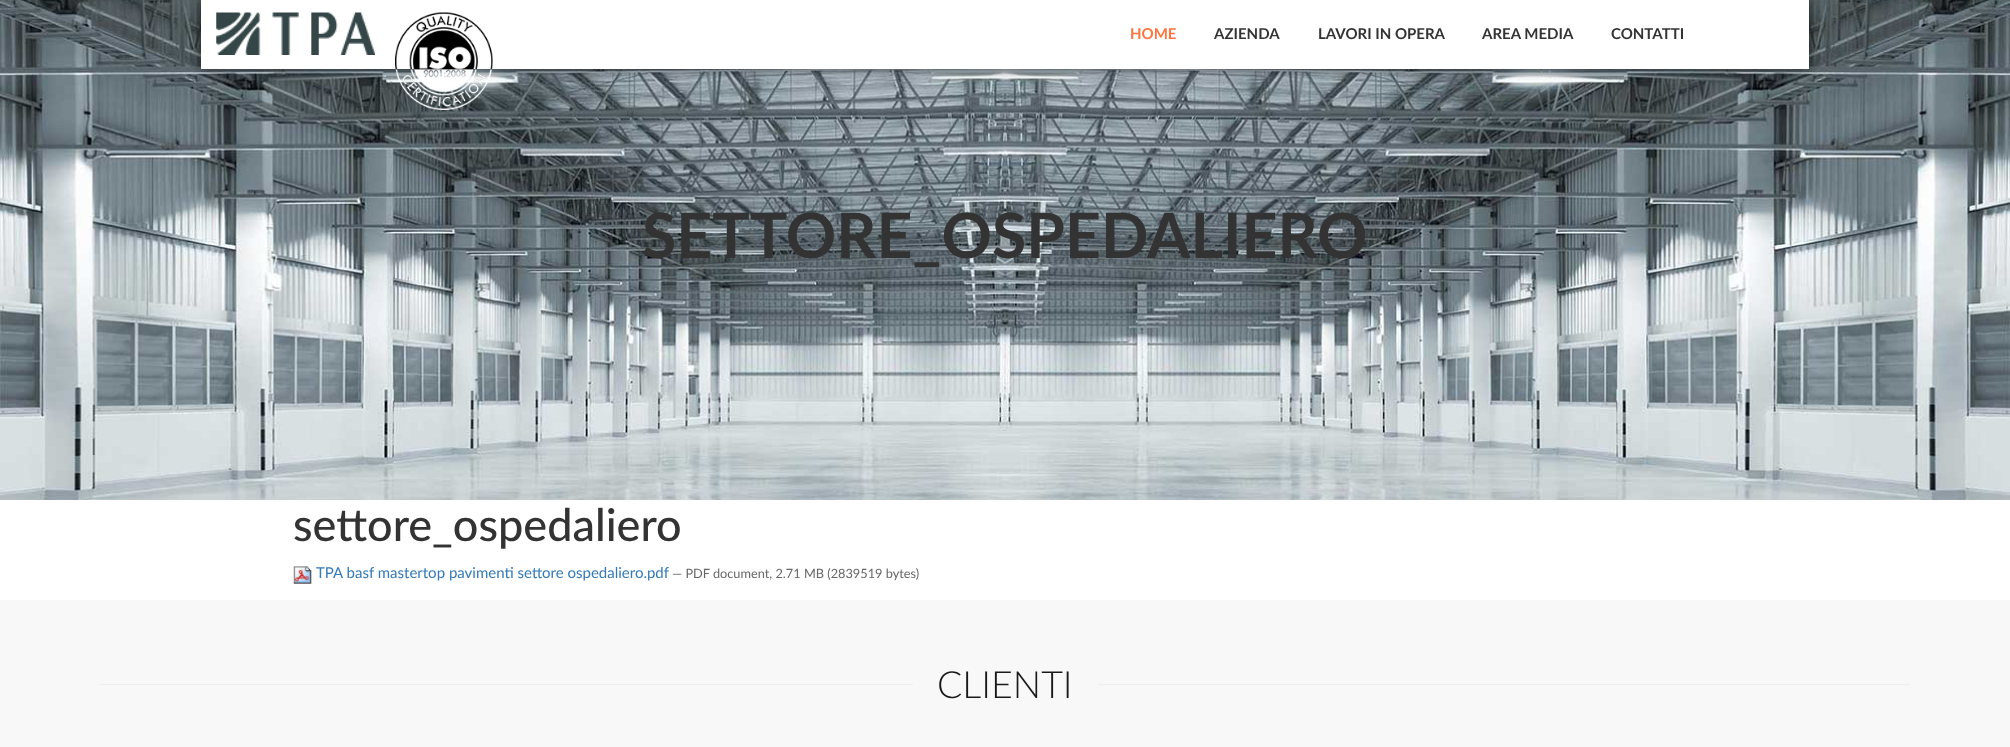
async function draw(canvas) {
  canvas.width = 2010;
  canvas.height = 747;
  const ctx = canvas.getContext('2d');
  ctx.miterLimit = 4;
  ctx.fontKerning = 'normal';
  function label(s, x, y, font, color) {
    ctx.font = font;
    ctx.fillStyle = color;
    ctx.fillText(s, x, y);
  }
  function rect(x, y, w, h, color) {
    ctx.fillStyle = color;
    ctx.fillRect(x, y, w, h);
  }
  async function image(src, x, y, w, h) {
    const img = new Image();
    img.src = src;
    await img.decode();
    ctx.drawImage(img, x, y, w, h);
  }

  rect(0, 0, 2010, 747, '#fff');
  await image('assets/img3.png', 0, 0, 2010, 500);
  ctx.fillStyle = '#000000b3';
  ctx.filter = 'blur(6px)';
  ctx.beginPath();
  ctx.rect(201, 0, 1608, 69);
  ctx.fill();
  ctx.filter = 'none';
  rect(201, 0, 1608, 69, '#fff');
  await image('assets/img1.png', 216, 12, 159, 43);
  await image('assets/img2.png', 395, 12, 98, 98);
  label('HOME', 1130, 39, 'bold 15px Lato', '#ff733d');
  label('AZIENDA', 1214, 39, 'bold 15px Lato', '#333');
  label('LAVORI IN OPERA', 1318, 39, 'bold 15px Lato', '#333');
  label('AREA MEDIA', 1482, 39, 'bold 15px Lato', '#333');
  label('CONTATTI', 1611, 39, 'bold 15px Lato', '#333');
  label('SETTORE_OSPEDALIERO', 642, 258, 'bold 62.5px Lato', '#333');
  label('settore_ospedaliero', 293, 541, '500 45px Lato', '#333');
  await image('assets/img4.png', 293, 566, 19, 18);
  label('TPA basf mastertop pavimenti settore ospedaliero.pdf', 316, 578, '15px Lato', '#337ab7');
  label('— PDF document, 2.71 MB (2839519 bytes)', 672, 578, '12.75px Lato', '#666');
  rect(0, 600, 2010, 147, '#f8f8f8');
  rect(100, 684, 1810, 1, '#eee');
  rect(913, 684, 185, 1, '#f8f8f8');
  label('CLIENTI', 937, 698, '300 37.5px Lato', '#191919');
}

draw(document.querySelector('canvas'));
